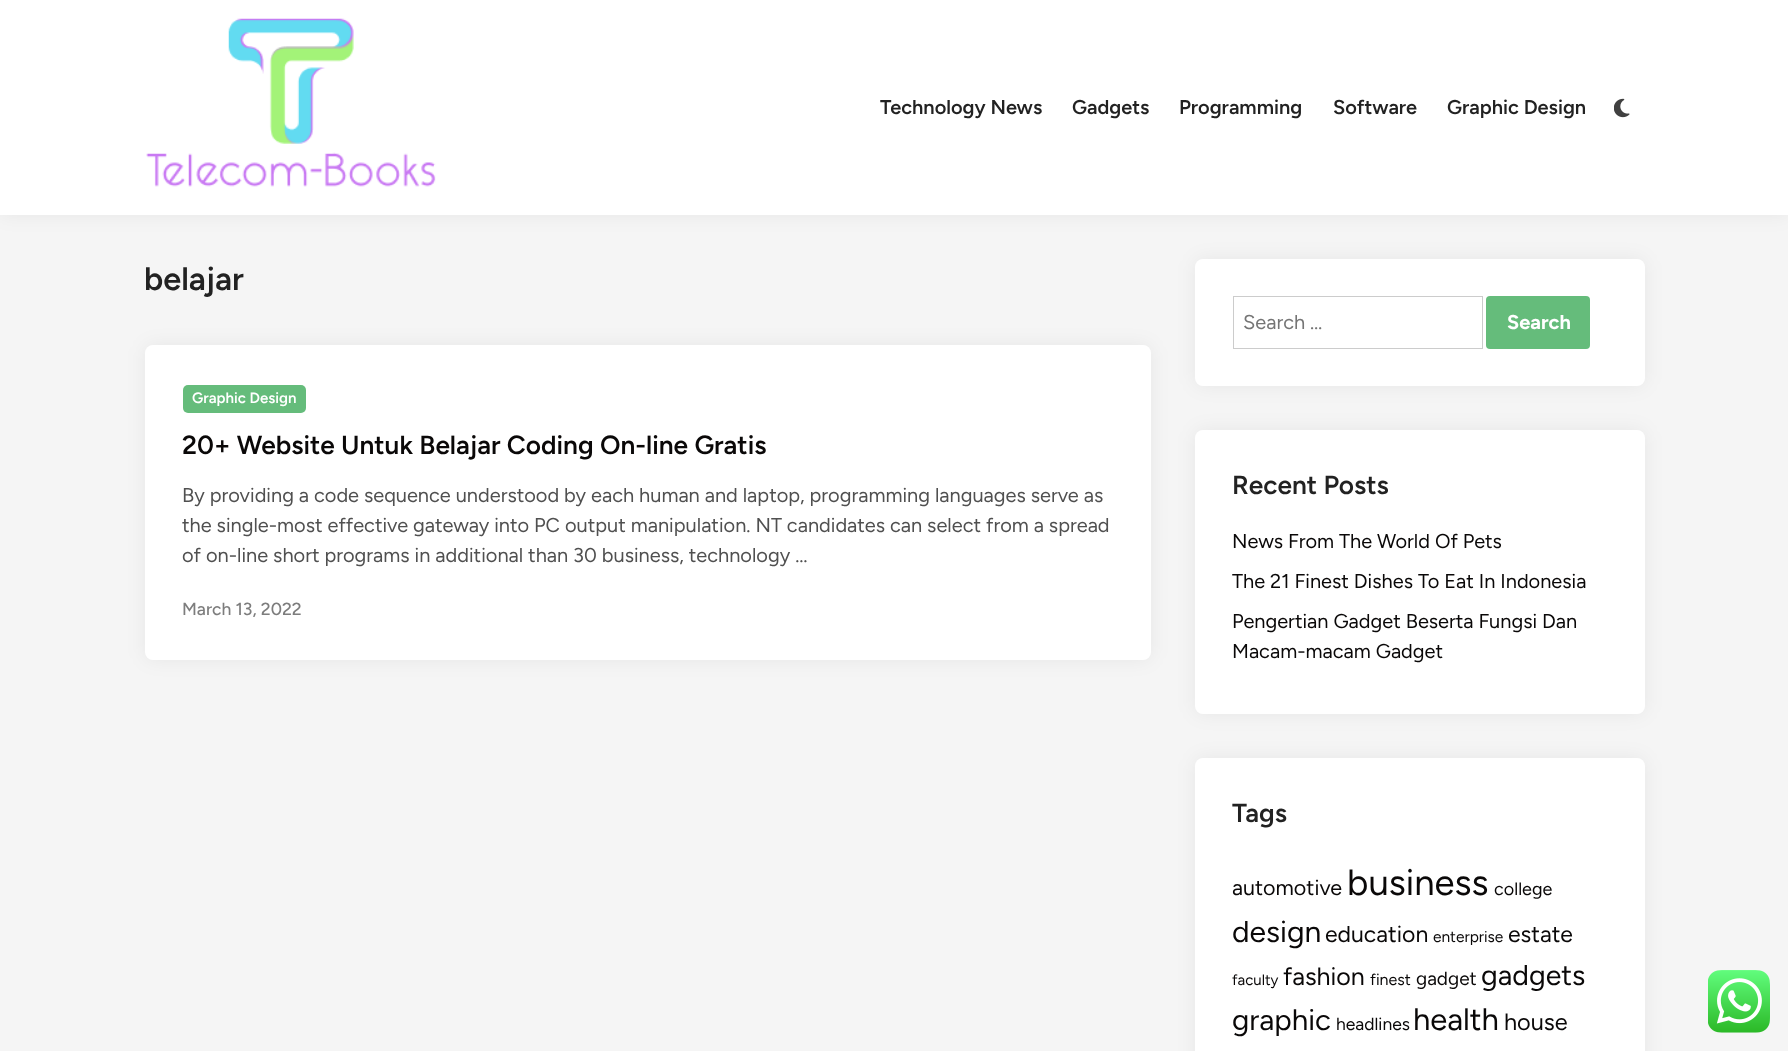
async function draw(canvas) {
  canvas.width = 1788;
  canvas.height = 1051;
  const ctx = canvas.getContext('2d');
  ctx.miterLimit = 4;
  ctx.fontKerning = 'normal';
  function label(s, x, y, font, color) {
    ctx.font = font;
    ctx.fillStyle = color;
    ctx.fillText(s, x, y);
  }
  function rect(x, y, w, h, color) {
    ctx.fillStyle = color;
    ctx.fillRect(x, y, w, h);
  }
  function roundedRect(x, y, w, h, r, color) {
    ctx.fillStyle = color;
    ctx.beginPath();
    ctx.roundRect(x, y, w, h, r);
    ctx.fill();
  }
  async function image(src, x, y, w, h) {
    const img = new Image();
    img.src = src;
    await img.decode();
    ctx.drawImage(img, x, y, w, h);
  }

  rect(0, 0, 1788, 1051, '#f5f5f5');
  ctx.fillStyle = '#0000000f';
  ctx.filter = 'blur(9.5px)';
  ctx.beginPath();
  ctx.rect(0, 0, 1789, 215);
  ctx.fill();
  ctx.filter = 'none';
  rect(0, 0, 1788, 215, '#fff');
  await image('assets/img1.png', 146, 18, 290, 169);
  label('Technology News', 880, 114, '600 20px Figtree', '#222');
  label('Gadgets', 1072, 114, '600 20px Figtree', '#222');
  label('Programming', 1179, 114, '600 20px Figtree', '#222');
  label('Software', 1333, 114, '600 20px Figtree', '#222');
  label('Graphic Design', 1447, 114, '600 20px Figtree', '#222');
  await image('assets/img2.png', 1614, 98, 16, 20);
  label('belajar', 144, 290, '600 32.5px Figtree', '#222');
  ctx.fillStyle = '#0000000f';
  ctx.filter = 'blur(9.5px)';
  ctx.beginPath();
  ctx.roundRect(145, 345, 1006, 315, 8);
  ctx.fill();
  ctx.filter = 'none';
  roundedRect(145, 345, 1006, 315, 8, '#fff');
  roundedRect(183, 385, 123, 28, 5, '#65bc7b');
  label('Graphic Design', 192, 403, '600 15px Figtree', '#fff');
  label('20+ Website Untuk Belajar Coding On-line Gratis', 182, 454, '600 26.25px Figtree', '#0a0808');
  label('By providing a code sequence understood by each human and laptop, programming languages serve as', 182, 502, '20px Figtree', '#505050');
  label('the single-most effective gateway into PC output manipulation. NT candidates can select from a spread', 182, 532, '20px Figtree', '#505050');
  label('of on-line short programs in additional than 30 business, technology …', 182, 562, '20px Figtree', '#505050');
  label('March 13, 2022', 182, 615, '500 17.5px Figtree', '#7d7d7d');
  ctx.fillStyle = '#0000000f';
  ctx.filter = 'blur(9.5px)';
  ctx.beginPath();
  ctx.roundRect(1195, 259, 450, 127, 8);
  ctx.fill();
  ctx.filter = 'none';
  roundedRect(1195, 259, 450, 127, 8, '#fff');
  ctx.strokeStyle = '#ccc';
  ctx.strokeRect(1233.5, 296.5, 249, 52);
  label('Search …', 1243, 329, '20px Figtree', '#757575');
  roundedRect(1486, 296, 104, 53, 4, '#65bc7b');
  label('Search', 1507, 329, 'bold 20px Figtree', '#fff');
  ctx.fillStyle = '#0000000f';
  ctx.filter = 'blur(9.5px)';
  ctx.beginPath();
  ctx.roundRect(1195, 430, 450, 284, 8);
  ctx.fill();
  ctx.filter = 'none';
  roundedRect(1195, 430, 450, 284, 8, '#fff');
  label('Recent Posts', 1232, 494, '600 26.25px Figtree', '#222');
  label('News From The World Of Pets', 1232, 548, '20px Figtree', '#0a0808');
  label('The 21 Finest Dishes To Eat In Indonesia', 1232, 588, '20px Figtree', '#0a0808');
  label('Pengertian Gadget Beserta Fungsi Dan', 1232, 628, '20px Figtree', '#0a0808');
  label('Macam-macam Gadget', 1232, 658, '20px Figtree', '#0a0808');
  ctx.fillStyle = '#0000000f';
  ctx.filter = 'blur(9.5px)';
  ctx.beginPath();
  ctx.roundRect(1195, 758, 450, 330, 8);
  ctx.fill();
  ctx.filter = 'none';
  roundedRect(1195, 758, 450, 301, 8, '#fff');
  label('Tags', 1232, 822, '600 26.25px Figtree', '#222');
  label('automotive', 1232, 895, '21.5px Figtree', '#0a0808');
  label('business', 1347, 895, '36.5px Figtree', '#0a0808');
  label('college', 1494, 895, '18px Figtree', '#0a0808');
  label('design', 1232, 942, '30px Figtree', '#0a0808');
  label('education', 1325, 942, '23px Figtree', '#0a0808');
  label('enterprise', 1433, 942, '15.5px Figtree', '#0a0808');
  label('estate', 1508, 942, '23px Figtree', '#0a0808');
  label('faculty', 1232, 985, '15px Figtree', '#0a0808');
  label('fashion', 1283, 985, '25px Figtree', '#0a0808');
  label('finest', 1370, 985, '16px Figtree', '#0a0808');
  label('gadget', 1416, 985, '19px Figtree', '#0a0808');
  label('gadgets', 1481, 985, '28.5px Figtree', '#0a0808');
  label('graphic', 1232, 1030, '29.5px Figtree', '#0a0808');
  label('headlines', 1336, 1030, '17.5px Figtree', '#0a0808');
  label('health', 1413, 1030, '31px Figtree', '#0a0808');
  label('house', 1504, 1030, '23.5px Figtree', '#0a0808');
  await image('assets/img3.png', 1708, 970, 62, 63);
}

draw(document.querySelector('canvas'));
